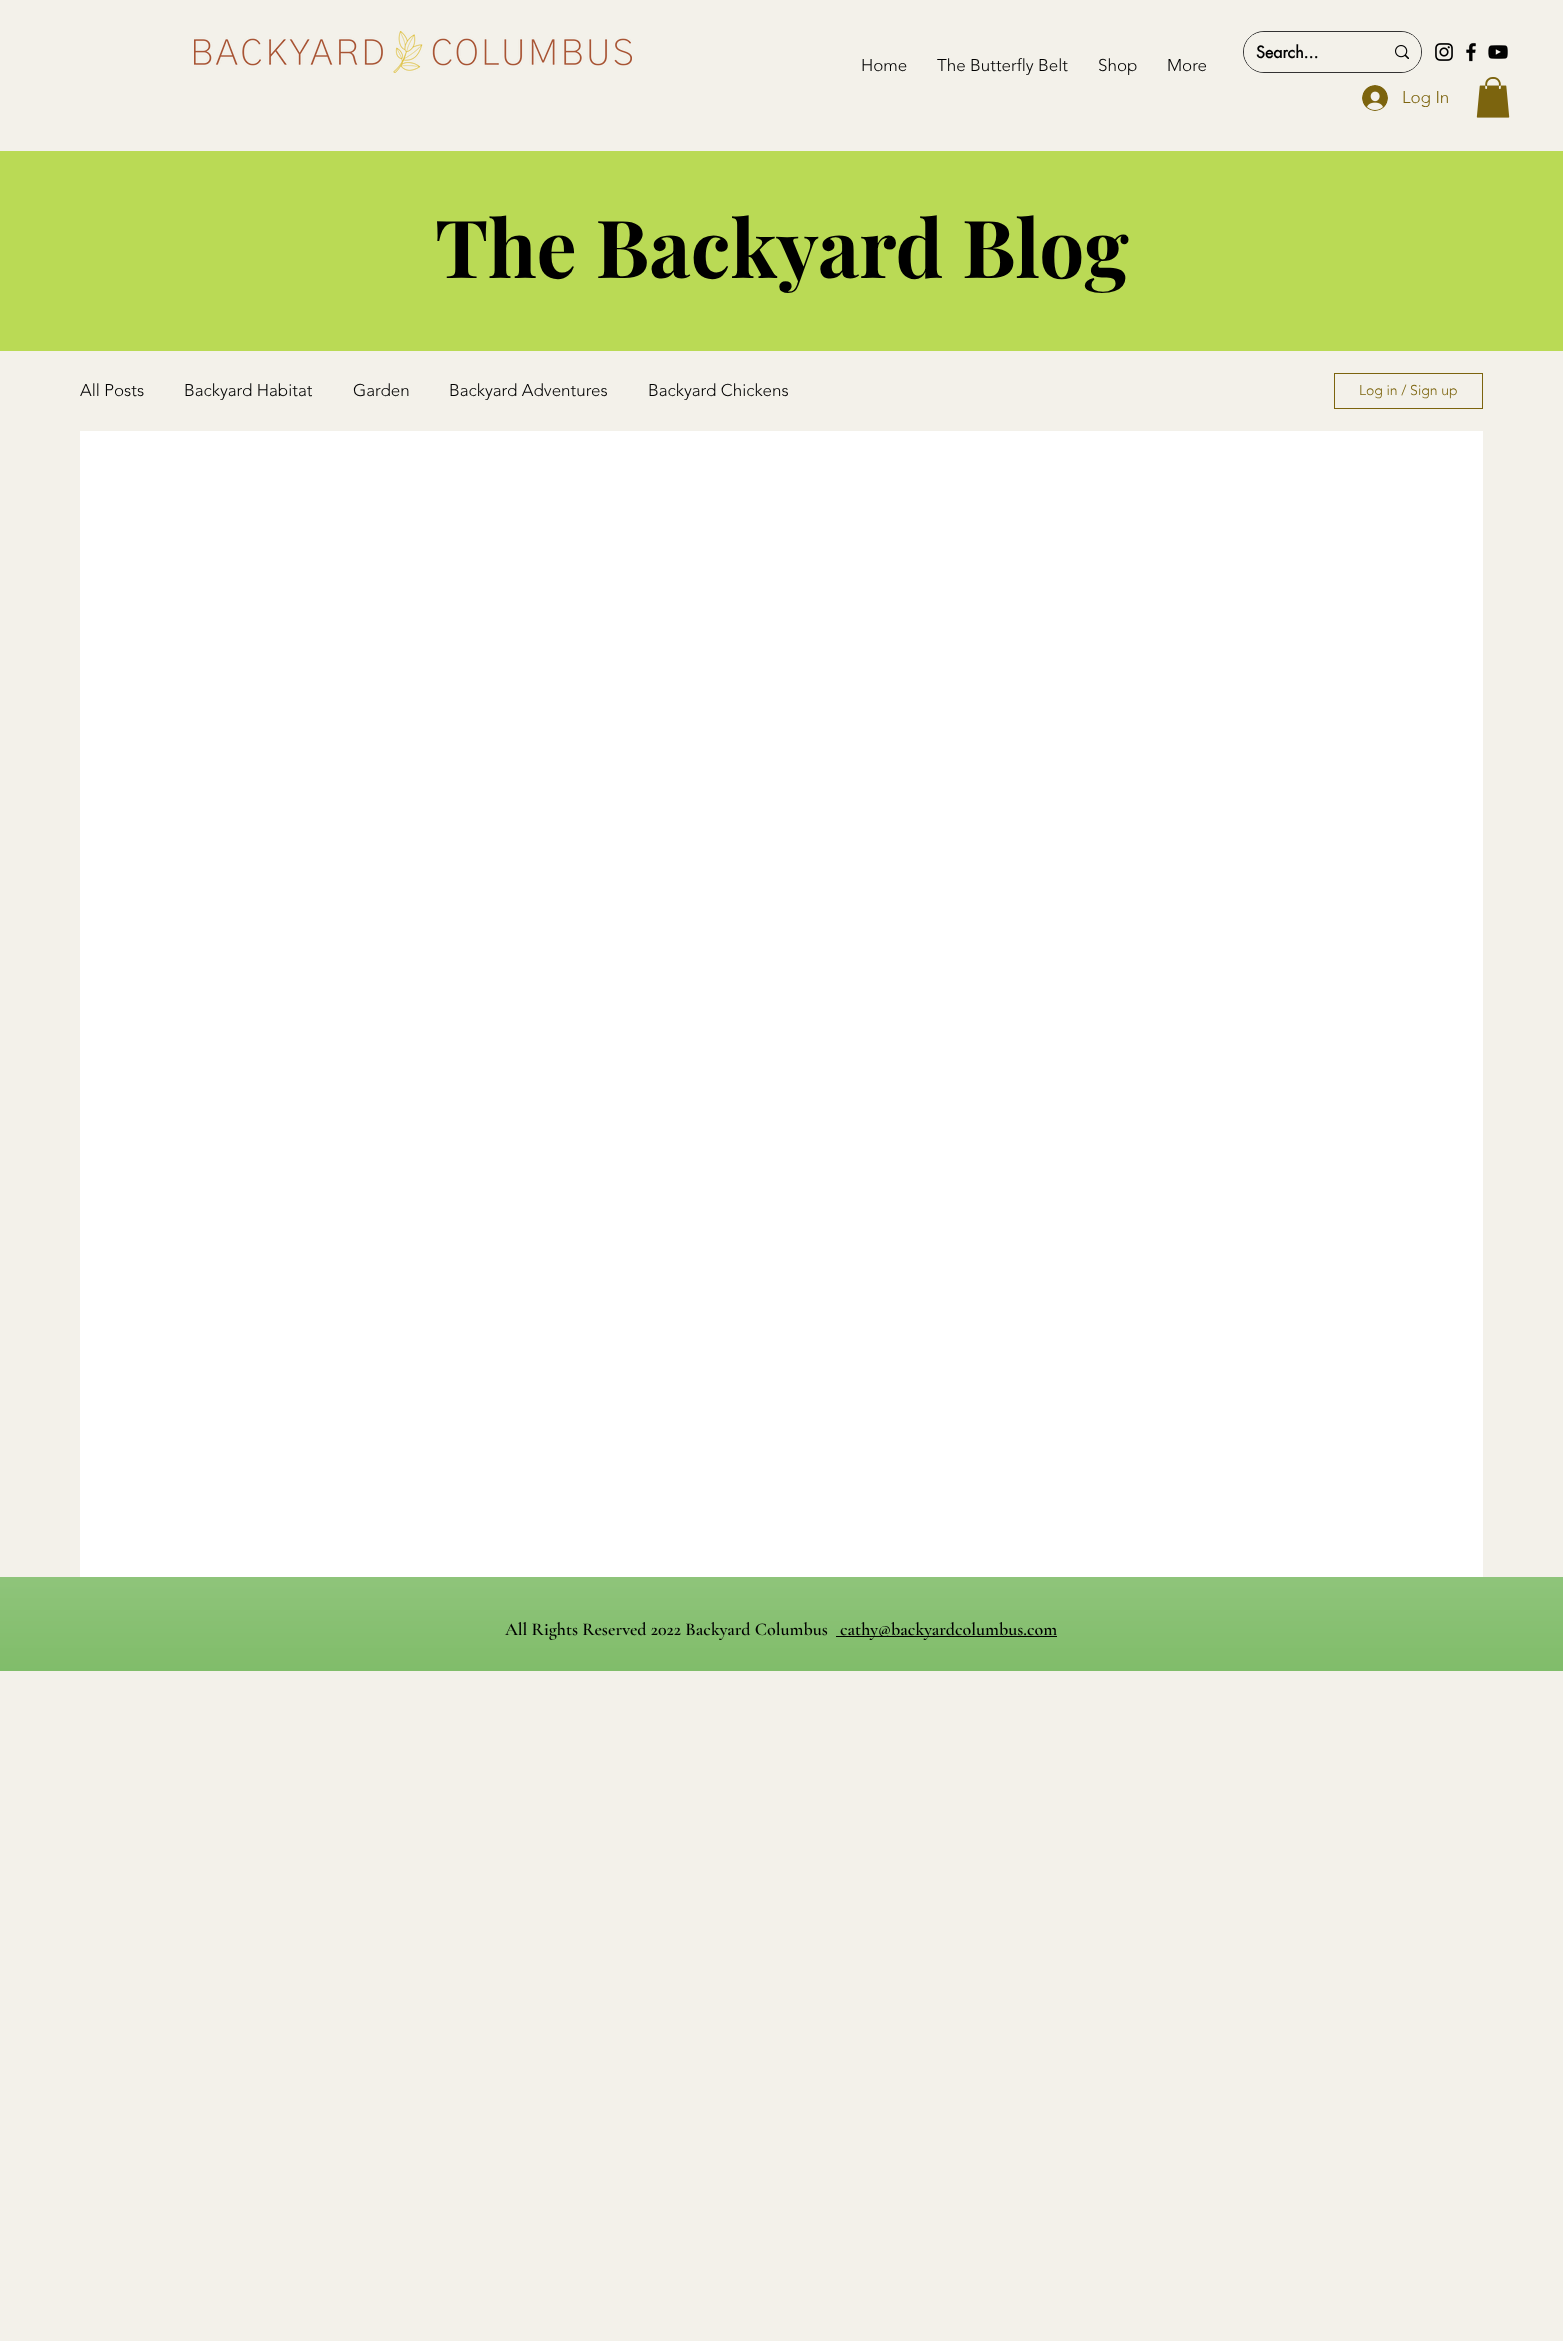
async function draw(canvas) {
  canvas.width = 1563;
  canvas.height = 2341;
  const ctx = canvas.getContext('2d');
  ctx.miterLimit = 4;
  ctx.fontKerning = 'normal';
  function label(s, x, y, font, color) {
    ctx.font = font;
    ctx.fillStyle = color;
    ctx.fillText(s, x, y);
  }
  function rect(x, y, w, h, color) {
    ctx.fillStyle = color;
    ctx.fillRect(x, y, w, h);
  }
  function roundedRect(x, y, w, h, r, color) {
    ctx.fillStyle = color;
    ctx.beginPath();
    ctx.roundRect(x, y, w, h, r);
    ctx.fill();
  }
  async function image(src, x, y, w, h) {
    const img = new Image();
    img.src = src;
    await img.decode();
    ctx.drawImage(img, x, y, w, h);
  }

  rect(0, 0, 1563, 2341, '#f3f1ea');
  await image('assets/img1.png', 194, 31, 438, 42);
  ctx.beginPath();
  ctx.roundRect(1243.5, 31.5, 178, 41, 20.5);
  ctx.strokeStyle = '#323232';
  ctx.stroke();
  roundedRect(1244, 32, 177, 40, 20, '#f3f1ea');
  label('Search...', 1256, 58, 'bold 16px futura', '#000');
  await image('assets/img2.png', 1395, 45, 14, 14);
  await image('assets/img3.png', 1435, 43, 18, 18);
  await image('assets/img4.png', 1466, 42, 10, 20);
  await image('assets/img5.png', 1488, 45, 20, 14);
  label('Home', 861, 71, '300 17px "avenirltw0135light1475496"', '#000');
  label('The Butterfly Belt', 937, 71, '300 17px "avenirltw0135light1475496"', '#000');
  label('Shop', 1098, 71, '300 17px "avenirltw0135light1475496"', '#000');
  label('More', 1167, 71, '300 17px "avenirltw0135light1475496"', '#000');
  await image('assets/img6.png', 1362, 85, 26, 26);
  label('Log In', 1402, 103, '300 17px "avenirltw0135light1475496"', '#7c640e');
  await image('assets/img7.png', 1476, 77, 34, 41);
  rect(0, 151, 1563, 200, '#bada55');
  label('The Backyard Blog', 435, 278, 'bold 80px Playfair Display', '#000');
  rect(80, 431, 1403, 1146, '#fff');
  label('All Posts', 80, 396, '300 17px "avenirltw0135light1475496"', '#000');
  label('Backyard Habitat', 184, 396, '300 17px "avenirltw0135light1475496"', '#000');
  label('Garden', 353, 396, '300 17px "avenirltw0135light1475496"', '#000');
  label('Backyard Adventures', 449, 396, '300 17px "avenirltw0135light1475496"', '#000');
  label('Backyard Chickens', 648, 396, '300 17px "avenirltw0135light1475496"', '#000');
  ctx.strokeStyle = '#7c640e';
  ctx.strokeRect(1334.5, 373.5, 148, 35);
  label('Log in / Sign up', 1359, 395, '300 14px "avenirltw0135light1475496"', '#7c640e');
  rect(0, 1577, 1563, 94, '#68b04d');
  await image('assets/img8.png', 0, 1577, 1563, 94);
  label('All Rights Reserved 2022 Backyard Columbus', 505, 1635, '600 18px Cormorant Garamond', '#000');
  rect(836, 1636, 221, 1, '#000');
  label('cathy@backyardcolumbus.com', 840, 1635, '600 18px Cormorant Garamond', '#000');
}

draw(document.querySelector('canvas'));
